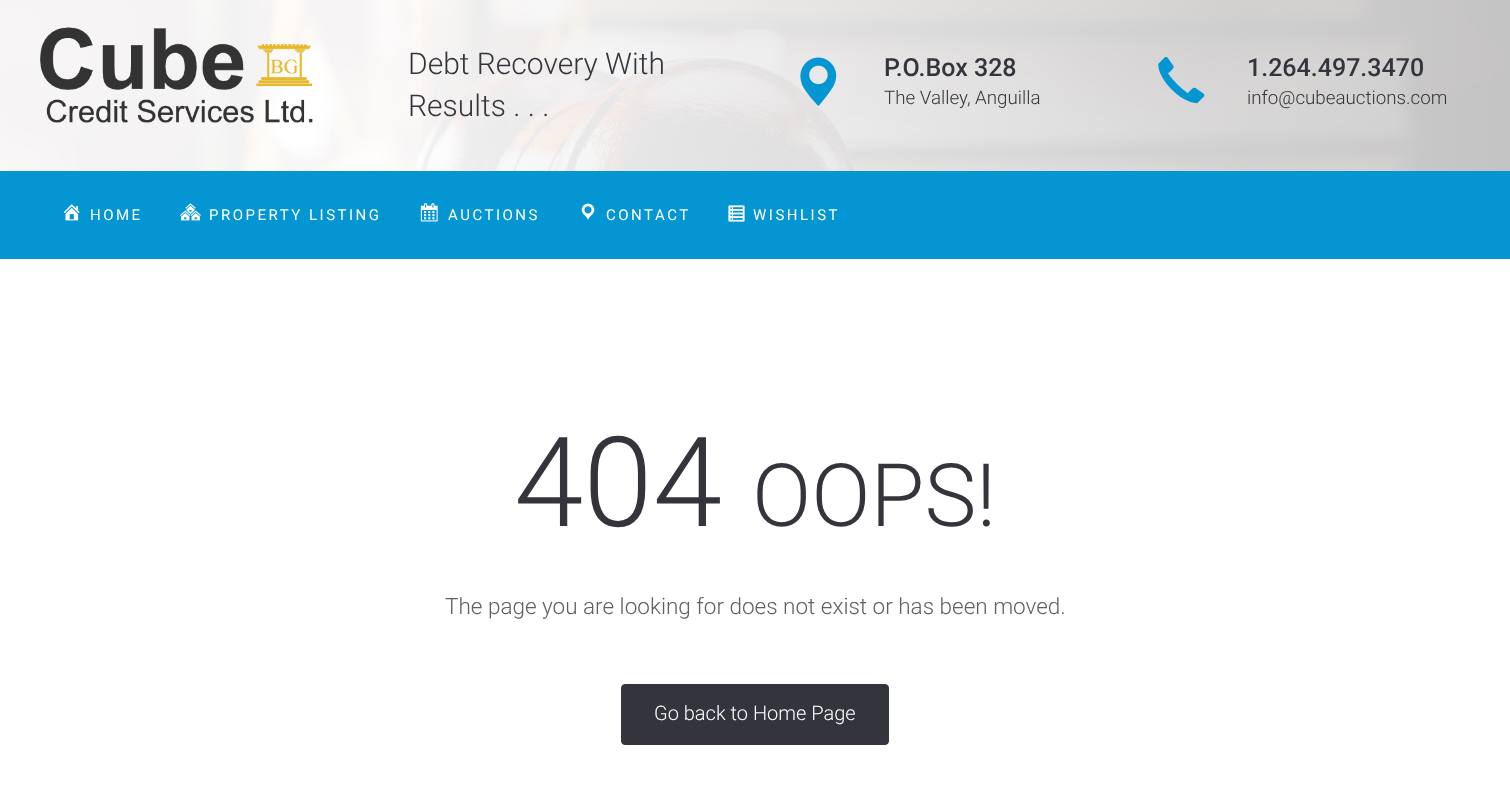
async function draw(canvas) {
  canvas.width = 1510;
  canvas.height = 788;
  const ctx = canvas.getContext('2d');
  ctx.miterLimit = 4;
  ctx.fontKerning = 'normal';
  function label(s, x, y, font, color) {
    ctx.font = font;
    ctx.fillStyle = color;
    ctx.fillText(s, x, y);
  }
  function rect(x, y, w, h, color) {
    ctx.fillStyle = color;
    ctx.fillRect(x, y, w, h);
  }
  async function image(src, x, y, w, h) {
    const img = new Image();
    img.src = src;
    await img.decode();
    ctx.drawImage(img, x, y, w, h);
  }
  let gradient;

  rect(0, 0, 1510, 788, '#fff');
  gradient = ctx.createLinearGradient(0, 86, 1510, 86);
  gradient.addColorStop(0, '#fff');
  gradient.addColorStop(0.24, '#fff');
  gradient.addColorStop(1, '#cecece');
  ctx.fillStyle = gradient;
  ctx.fillRect(421, 0, 1089, 171);
  await image('assets/img1.png', 0, 0, 1510, 171);
  await image('assets/img2.png', 40, 27, 273, 96);
  label('Debt Recovery With', 408, 74, '300 30px Roboto', '#34343c');
  label('Results . . .', 408, 116, '300 30px Roboto', '#34343c');
  await image('assets/img3.png', 800, 57, 37, 49);
  label('P.O.Box 328', 884, 76, '500 25px Roboto', '#34343c');
  label('The Valley, Anguilla', 884, 104, '300 18.75px Roboto', '#34343c');
  await image('assets/img4.png', 1158, 56, 47, 48);
  label('1.264.497.3470', 1247, 76, '500 25px Roboto', '#34343c');
  label('info@cubeauctions.com', 1247, 104, '300 18.75px Roboto', '#34343c');
  rect(0, 171, 1510, 88, '#0495d3');
  await image('assets/img5.png', 64, 204, 16, 17);
  ctx.letterSpacing = '2.5px';
  label('HOME', 90, 220, '15px Roboto', '#fff');
  await image('assets/img6.png', 180, 203, 21, 18);
  label('PROPERTY LISTING', 209, 220, '15px Roboto', '#fff');
  await image('assets/img7.png', 420, 203, 18, 19);
  label('AUCTIONS', 448, 220, '15px Roboto', '#fff');
  await image('assets/img8.png', 581, 203, 14, 17);
  label('CONTACT', 606, 220, '15px Roboto', '#fff');
  await image('assets/img9.png', 728, 205, 17, 17);
  label('WISHLIST', 753, 220, '15px Roboto', '#fff');
  ctx.letterSpacing = '0px';
  label('404', 514, 526, '300 125px Roboto', '#34343c');
  label('OOPS!', 752, 526, '300 87.5px Roboto', '#34343c');
  label('The page you are looking for does not exist or has been moved.', 445, 614, '300 22.5px Roboto', '#606060');
  ctx.fillStyle = '#34343c';
  ctx.beginPath();
  ctx.roundRect(621.5, 684.5, 267, 60, 3.5);
  ctx.fill();
  ctx.strokeStyle = '#34343c';
  ctx.stroke();
  label('Go back to Home Page', 654, 720, '300 20px Roboto', '#fff');
}

draw(document.querySelector('canvas'));
